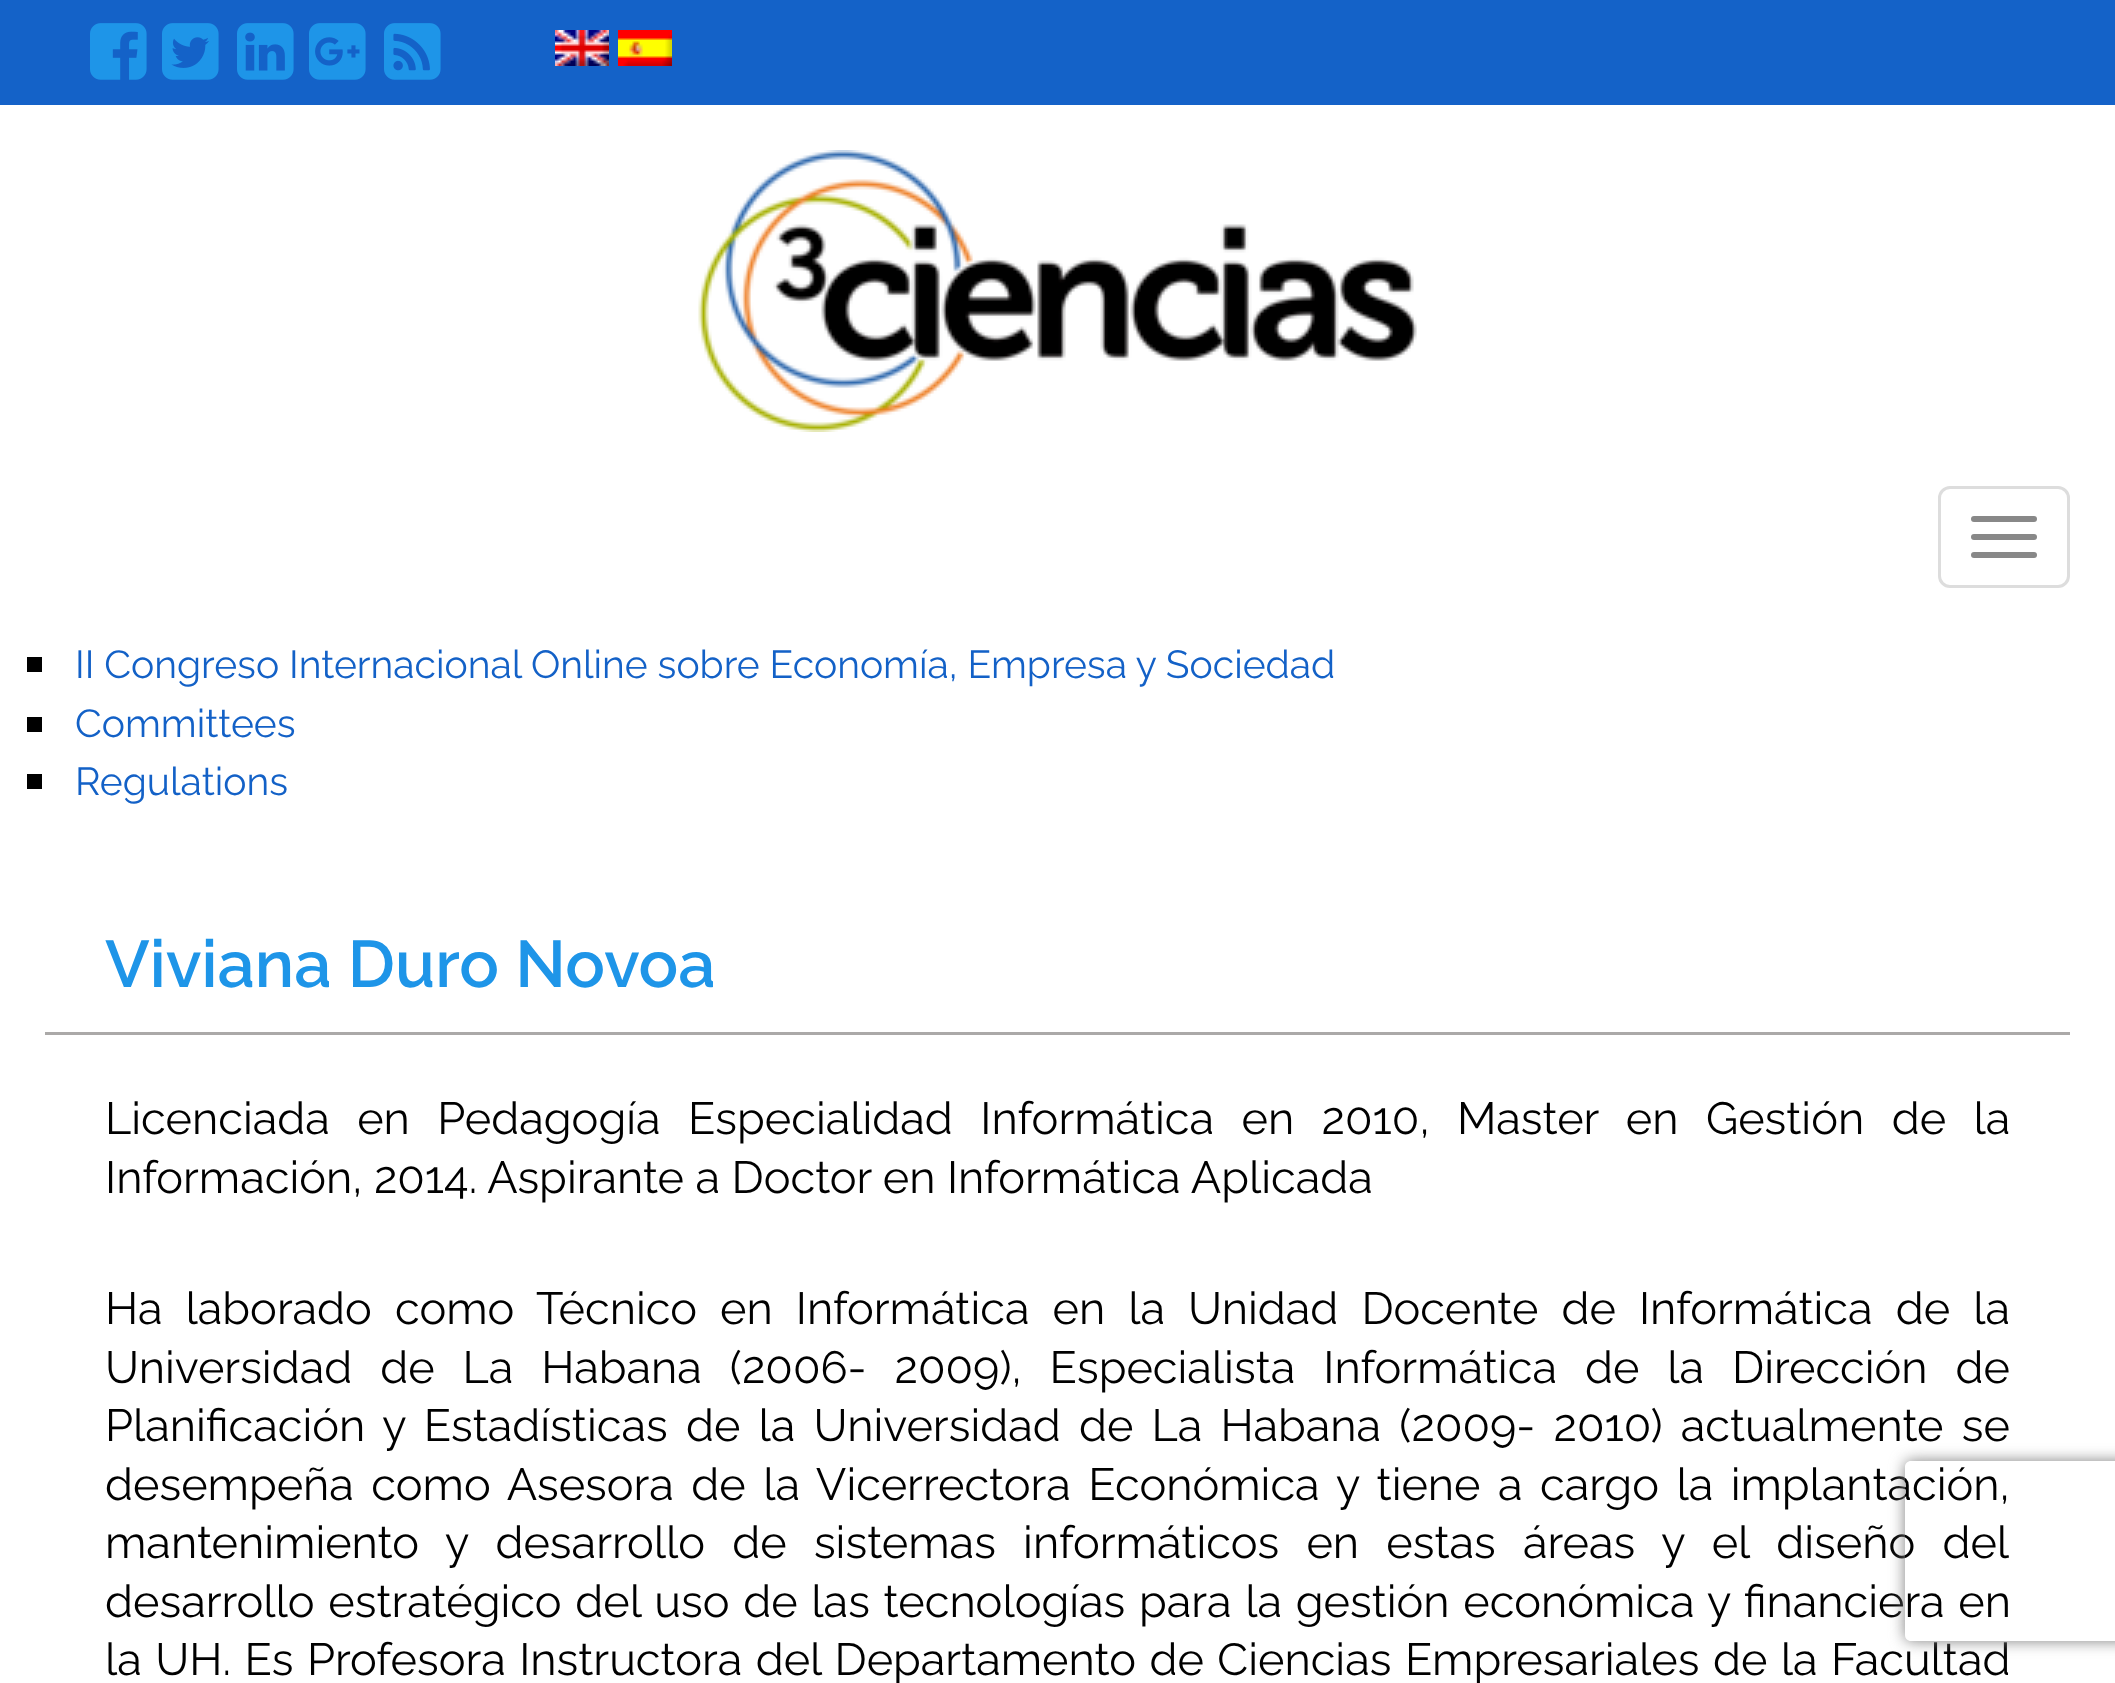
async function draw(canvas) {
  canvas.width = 2115;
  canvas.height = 1683;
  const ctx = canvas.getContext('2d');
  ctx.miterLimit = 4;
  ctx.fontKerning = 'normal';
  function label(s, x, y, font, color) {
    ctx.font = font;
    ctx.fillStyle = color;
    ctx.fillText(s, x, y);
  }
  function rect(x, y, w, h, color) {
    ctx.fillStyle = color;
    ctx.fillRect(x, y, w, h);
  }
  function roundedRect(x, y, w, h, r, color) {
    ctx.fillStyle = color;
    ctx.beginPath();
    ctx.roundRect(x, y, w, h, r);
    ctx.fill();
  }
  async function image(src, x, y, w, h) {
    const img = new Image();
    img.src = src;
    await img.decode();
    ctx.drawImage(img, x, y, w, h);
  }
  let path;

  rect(0, 0, 2115, 1683, '#fff');
  rect(0, 0, 2115, 105, '#1462c8');
  await image('assets/img1.png', 90, 23, 57, 57);
  await image('assets/img2.png', 162, 23, 57, 57);
  await image('assets/img3.png', 237, 23, 57, 57);
  await image('assets/img4.png', 309, 23, 57, 57);
  await image('assets/img5.png', 384, 23, 57, 57);
  await image('assets/img6.png', 555, 30, 54, 36);
  await image('assets/img7.png', 618, 30, 54, 36);
  await image('assets/img8.png', 698, 150, 719, 282);
  ctx.beginPath();
  ctx.roundRect(1939.5, 487.5, 129, 99, 10.5);
  ctx.strokeStyle = '#ddd';
  ctx.lineWidth = 3;
  ctx.stroke();
  roundedRect(1971, 516, 66, 6, 3, '#888');
  roundedRect(1971, 534, 66, 6, 3, '#888');
  roundedRect(1971, 552, 66, 6, 3, '#888');
  rect(27, 657, 15, 15, '#000');
  label('II Congreso Internacional Online sobre Economía, Empresa y Sociedad', 75, 678, '39px Raleway', '#1361c7');
  rect(27, 717, 15, 15, '#000');
  label('Committees', 75, 737, '39px Raleway', '#1361c7');
  rect(27, 774, 15, 15, '#000');
  label('Regulations', 75, 795, '39px Raleway', '#1361c7');
  rect(45, 1032, 2025, 3, '#aba9a8');
  label('Viviana Duro Novoa', 105, 987, '600 66px Raleway', '#1e95e8');
  ctx.wordSpacing = '16px';
  label('Licenciada en Pedagogía Especialidad Informática en 2010, Master en Gestión de la', 105, 1134, '45px Raleway', '#000');
  ctx.wordSpacing = '0px';
  label('Información, 2014. Aspirante a Doctor en Informática Aplicada', 105, 1193, '45px Raleway', '#000');
  ctx.wordSpacing = '11.6px';
  label('Ha laborado como Técnico en Informática en la Unidad Docente de Informática de la', 105, 1324, '45px Raleway', '#000');
  ctx.wordSpacing = '16.5px';
  label('Universidad de La Habana (2006- 2009), Especialista Informática de la Dirección de', 105, 1383, '45px Raleway', '#000');
  ctx.wordSpacing = '6.75px';
  label('Planificación y Estadísticas de la Universidad de La Habana (2009- 2010) actualmente se', 105, 1441, '45px Raleway', '#000');
  ctx.wordSpacing = '6px';
  label('desempeña como Asesora de la Vicerrectora Económica y tiene a cargo la implantación,', 105, 1500, '45px Raleway', '#000');
  ctx.wordSpacing = '15.75px';
  label('mantenimiento y desarrollo de sistemas informáticos en estas áreas y el diseño del', 105, 1558, '45px Raleway', '#000');
  ctx.wordSpacing = '2.25px';
  label('desarrollo estratégico del uso de las tecnologías para la gestión económica y financiera en', 105, 1617, '45px Raleway', '#000');
  ctx.wordSpacing = '2px';
  label('la UH. Es Profesora Instructora del Departamento de Ciencias Empresariales de la Facultad', 105, 1675, '45px Raleway', '#000');
  ctx.save();
  path = new Path2D('M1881 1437H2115V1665H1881ZM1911 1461H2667C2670.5 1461 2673 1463.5 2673 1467V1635C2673 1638.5 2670.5 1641 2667 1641H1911C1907.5 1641 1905 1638.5 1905 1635V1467C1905 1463.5 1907.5 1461 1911 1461Z');
  ctx.clip(path, 'evenodd');
  ctx.fillStyle = '#808080';
  ctx.filter = 'blur(7.5px)';
  ctx.beginPath();
  ctx.roundRect(1905, 1461, 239, 180, 6);
  ctx.fill();
  ctx.filter = 'none';
  ctx.restore();
}

draw(document.querySelector('canvas'));
